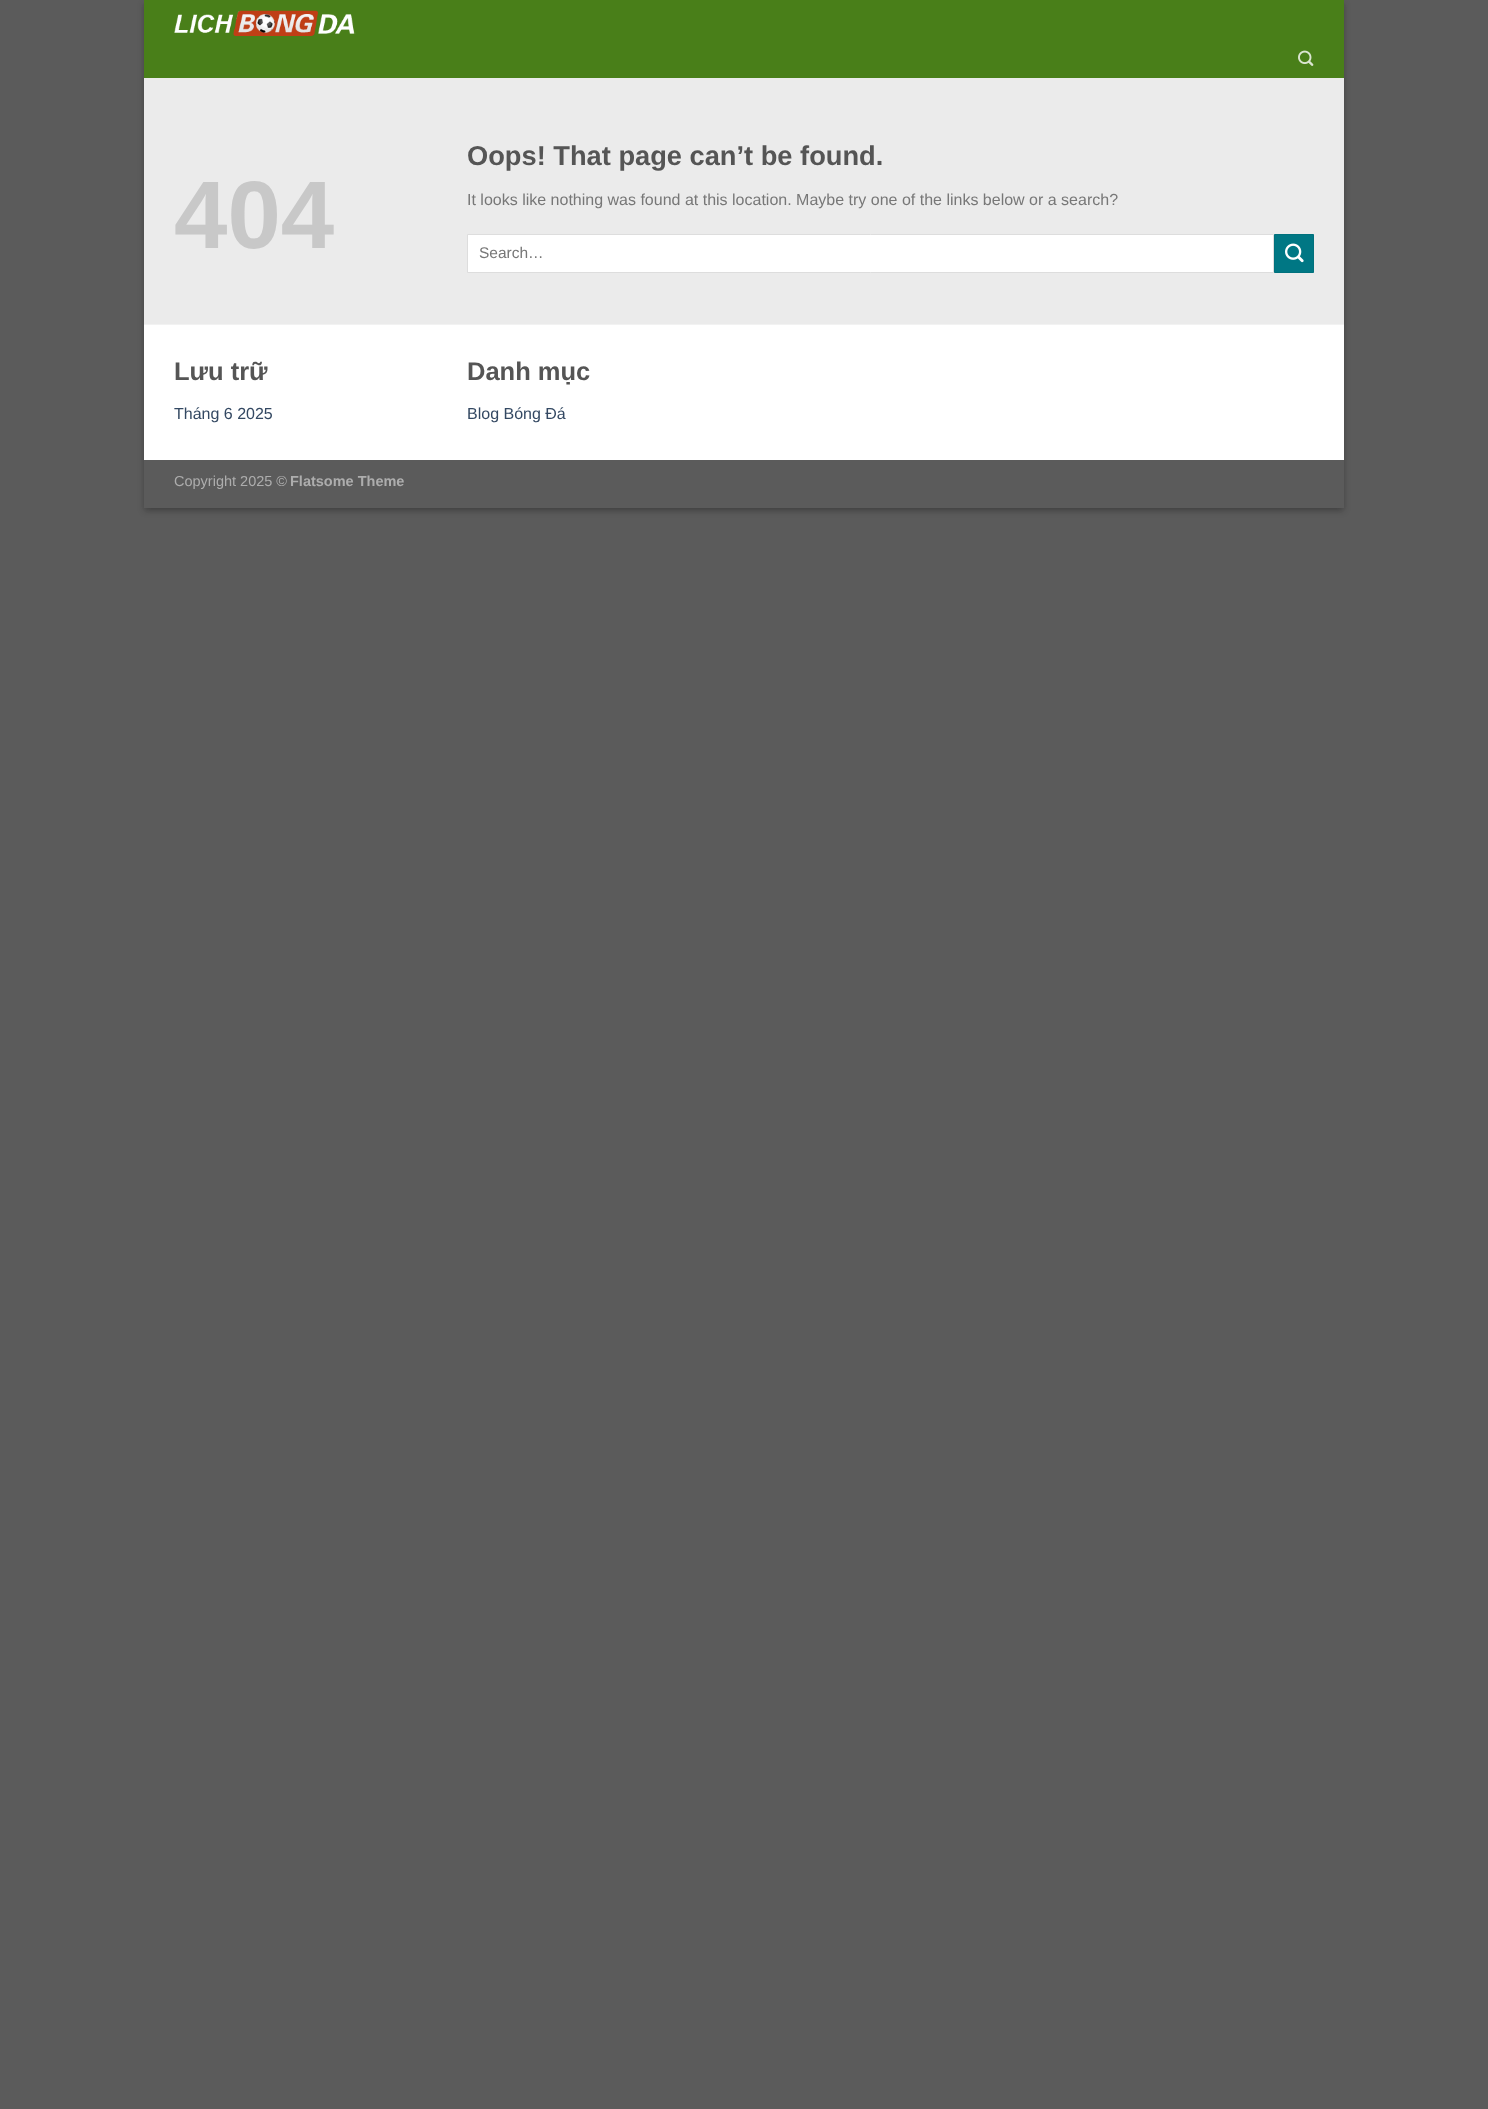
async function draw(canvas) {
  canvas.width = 1488;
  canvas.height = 2109;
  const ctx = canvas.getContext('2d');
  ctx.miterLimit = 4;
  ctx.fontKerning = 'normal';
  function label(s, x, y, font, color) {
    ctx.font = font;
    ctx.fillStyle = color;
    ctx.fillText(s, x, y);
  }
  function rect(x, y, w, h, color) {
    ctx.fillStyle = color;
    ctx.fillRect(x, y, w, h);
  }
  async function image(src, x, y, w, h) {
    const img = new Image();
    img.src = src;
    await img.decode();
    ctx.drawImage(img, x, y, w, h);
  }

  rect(0, 0, 1488, 2109, '#5b5b5b');
  ctx.fillStyle = '#0000003b';
  ctx.filter = 'blur(3px)';
  ctx.beginPath();
  ctx.rect(144, 3, 1200, 508);
  ctx.fill();
  ctx.filter = 'none';
  ctx.fillStyle = '#00000029';
  ctx.filter = 'blur(3px)';
  ctx.beginPath();
  ctx.rect(148, 7, 1192, 500);
  ctx.fill();
  ctx.filter = 'none';
  rect(144, 78, 1200, 246, '#ebebeb');
  rect(144, 0, 1200, 78, '#497f19');
  await image('assets/img1.png', 174, 10, 182, 26);
  await image('assets/img2.png', 1298, 50, 16, 16);
  label('404', 174, 248, 'bold 96px Liberation Sans', '#c8c8c8');
  label('Oops! That page can’t be found.', 467, 165, 'bold 27.25px Liberation Sans', '#555');
  label('It looks like nothing was found at this location. Maybe try one of the links below or a search?', 467, 205, '16px Liberation Sans', '#777');
  ctx.fillStyle = '#fff';
  ctx.beginPath();
  ctx.rect(467.5, 234.5, 806, 38);
  ctx.fill();
  ctx.strokeStyle = '#ddd';
  ctx.stroke();
  label('Search…', 479, 258, '15.5px Liberation Sans', '#777');
  ctx.fillStyle = '#007784';
  ctx.beginPath();
  ctx.rect(1274.5, 234.5, 39, 38);
  ctx.fill();
  ctx.strokeStyle = '#00717d';
  ctx.stroke();
  await image('assets/img3.png', 1285, 243, 19, 20);
  rect(144, 325, 1200, 135, '#fff');
  rect(144, 324, 1200, 1, '#f2f2f2');
  label('Lưu trữ', 174, 380, 'bold 25.5px Liberation Sans', '#555');
  label('Tháng 6 2025', 174, 419, '16px Liberation Sans', '#334862');
  label('Danh mục', 467, 380, 'bold 25.5px Liberation Sans', '#555');
  label('Blog Bóng Đá', 467, 419, '16px Liberation Sans', '#334862');
  rect(144, 460, 1200, 48, '#5b5b5b');
  label('Copyright 2025 ©', 174, 486, '14.5px Liberation Sans', '#adadad');
  label('Flatsome Theme', 290, 486, 'bold 14.5px Liberation Sans', '#adadad');
}

draw(document.querySelector('canvas'));
